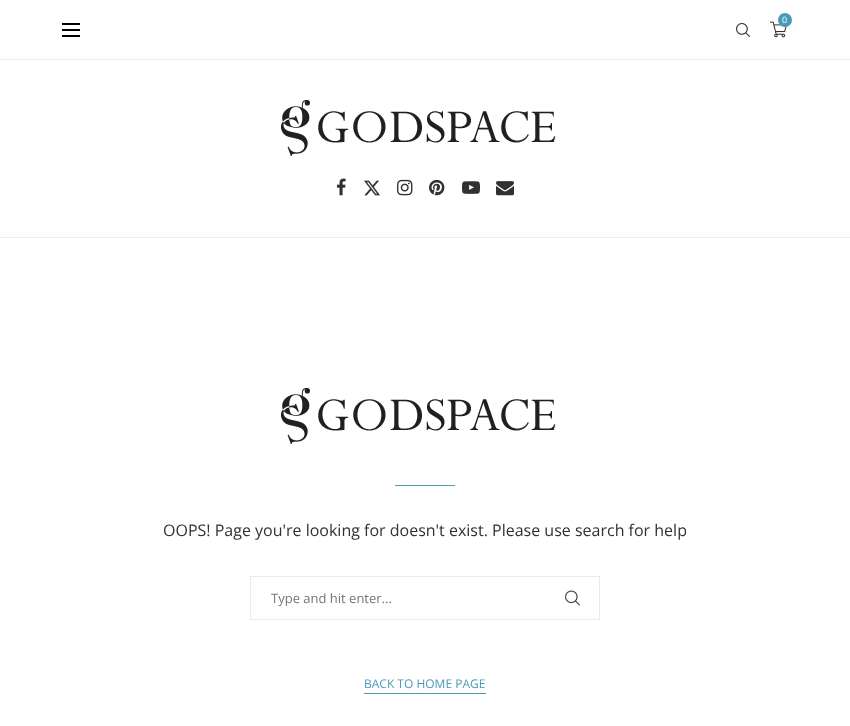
async function draw(canvas) {
  canvas.width = 850;
  canvas.height = 726;
  const ctx = canvas.getContext('2d');
  ctx.miterLimit = 4;
  ctx.fontKerning = 'normal';
  function label(s, x, y, font, color) {
    ctx.font = font;
    ctx.fillStyle = color;
    ctx.fillText(s, x, y);
  }
  function rect(x, y, w, h, color) {
    ctx.fillStyle = color;
    ctx.fillRect(x, y, w, h);
  }
  async function image(src, x, y, w, h) {
    const img = new Image();
    img.src = src;
    await img.decode();
    ctx.drawImage(img, x, y, w, h);
  }

  rect(0, 0, 850, 726, '#fff');
  rect(0, 59, 850, 1, '#ececec');
  await image('assets/img1.png', 770, 21, 17, 17);
  ctx.fillStyle = '#4a9ab7';
  ctx.beginPath();
  ctx.arc(785, 20, 7, 0, 2 * Math.PI);
  ctx.fill();
  label('0', 782, 23, '9px Open Sans', '#fff');
  rect(62, 23, 18, 2, '#000');
  rect(62, 29, 18, 2, '#000');
  rect(62, 35, 18, 2, '#000');
  await image('assets/img2.png', 736, 23, 14, 14);
  rect(0, 237, 850, 1, '#ececec');
  await image('assets/img3.png', 281, 100, 275, 56);
  await image('assets/img4.png', 336, 178, 10, 18);
  await image('assets/img5.png', 364, 180, 16, 16);
  await image('assets/img6.png', 397, 179, 16, 17);
  await image('assets/img7.png', 429, 179, 16, 17);
  await image('assets/img8.png', 462, 181, 18, 13);
  await image('assets/img9.png', 496, 181, 18, 15);
  await image('assets/img3.png', 281, 388, 275, 56);
  rect(395, 485, 60, 1, '#4a9ab7');
  label('OOPS! Page you\'re looking for doesn\'t exist. Please use search for help', 163, 536, '16px Open Sans', '#313131');
  ctx.strokeStyle = '#e9e9e9';
  ctx.strokeRect(250.5, 576.5, 349, 43);
  label('Type and hit enter...', 271, 603, '13px Open Sans', '#757575');
  await image('assets/img10.png', 565, 590, 15, 16);
  label('BACK TO HOME PAGE', 364, 688, '12px Open Sans', '#4a9ab7');
  rect(364, 693, 122, 1, '#4a9ab7');
}

draw(document.querySelector('canvas'));
